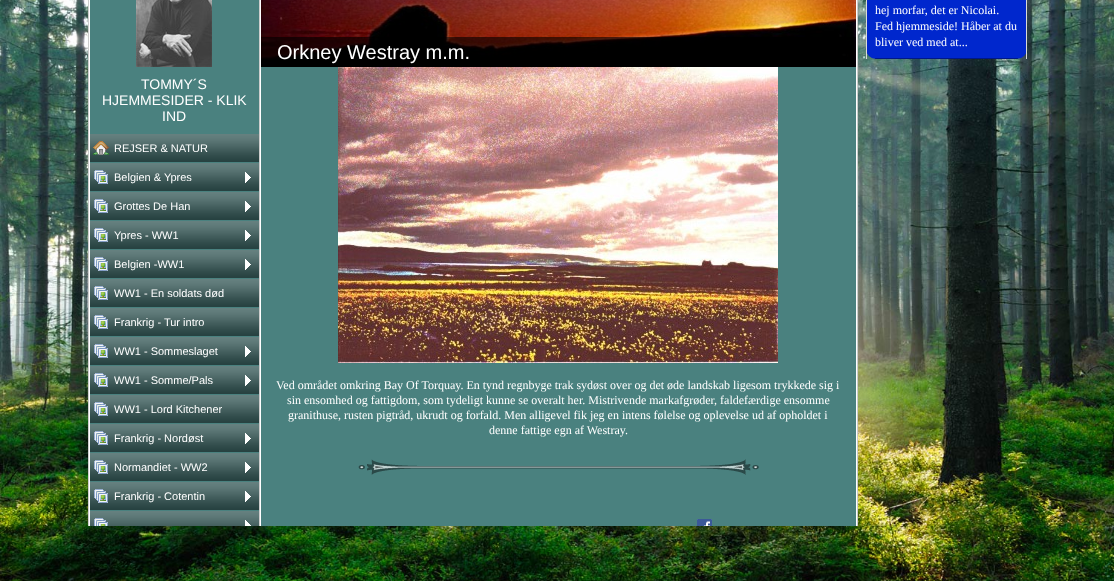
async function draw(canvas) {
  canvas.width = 1114;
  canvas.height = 581;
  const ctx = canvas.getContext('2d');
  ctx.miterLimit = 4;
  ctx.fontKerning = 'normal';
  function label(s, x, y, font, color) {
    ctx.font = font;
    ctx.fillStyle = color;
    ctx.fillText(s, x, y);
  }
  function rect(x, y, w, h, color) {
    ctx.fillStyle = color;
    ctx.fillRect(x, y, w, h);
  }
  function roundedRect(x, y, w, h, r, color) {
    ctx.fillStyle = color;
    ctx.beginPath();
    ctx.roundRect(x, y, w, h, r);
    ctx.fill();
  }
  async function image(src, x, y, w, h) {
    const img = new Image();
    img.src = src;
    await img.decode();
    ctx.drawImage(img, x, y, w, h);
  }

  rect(0, 0, 1114, 581, '#fff');
  await image('assets/img1.png', 0, 0, 1114, 581);
  roundedRect(866, -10, 161, 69, 10, '#0027cd');
  rect(1026, 0, 1, 59, '#dadada');
  rect(866, 0, 1, 59, '#dadada');
  label('hej morfar, det er Nicolai.', 875, 14, '12px Liberation Serif', '#fff');
  label('Fed hjemmeside! Håber at du', 875, 30, '12px Liberation Serif', '#fff');
  label('bliver ved med at...', 875, 46, '12px Liberation Serif', '#fff');
  await image('assets/img2.png', 875, 58, 143, 1);
  rect(89, 0, 768, 526, '#fff');
  rect(88, 0, 1, 526, '#ccc');
  rect(90, 0, 169, 526, '#4a817f');
  await image('assets/img3.png', 136, 0, 76, 67);
  label('TOMMY´S', 141, 89, '14px Liberation Sans', '#fff');
  label('HJEMMESIDER - KLIK', 102, 105, '14px Liberation Sans', '#fff');
  label('IND', 162, 121, '14px Liberation Sans', '#fff');
  await image('assets/img4.png', 90, 134, 169, 28);
  await image('assets/img5.png', 93, 141, 16, 14);
  label('REJSER & NATUR', 114, 152, '11px Liberation Sans', '#fff');
  await image('assets/img4.png', 90, 163, 169, 28);
  await image('assets/img6.png', 94, 170, 14, 14);
  await image('assets/img7.png', 245, 172, 6, 11);
  label('Belgien & Ypres', 114, 181, '11px Liberation Sans', '#fff');
  await image('assets/img4.png', 90, 192, 169, 28);
  await image('assets/img6.png', 94, 199, 14, 14);
  await image('assets/img7.png', 245, 201, 6, 11);
  label('Grottes De Han', 114, 210, '11px Liberation Sans', '#fff');
  await image('assets/img4.png', 90, 221, 169, 28);
  await image('assets/img6.png', 94, 228, 14, 14);
  await image('assets/img7.png', 245, 230, 6, 11);
  label('Ypres - WW1', 114, 239, '11px Liberation Sans', '#fff');
  await image('assets/img4.png', 90, 250, 169, 28);
  await image('assets/img6.png', 94, 257, 14, 14);
  await image('assets/img7.png', 245, 259, 6, 11);
  label('Belgien -WW1', 114, 268, '11px Liberation Sans', '#fff');
  await image('assets/img4.png', 90, 279, 169, 28);
  await image('assets/img6.png', 94, 286, 14, 14);
  label('WW1 - En soldats død', 114, 297, '11px Liberation Sans', '#fff');
  await image('assets/img4.png', 90, 308, 169, 28);
  await image('assets/img6.png', 94, 315, 14, 14);
  label('Frankrig - Tur intro', 114, 326, '11px Liberation Sans', '#fff');
  await image('assets/img4.png', 90, 337, 169, 28);
  await image('assets/img6.png', 94, 344, 14, 14);
  await image('assets/img7.png', 245, 346, 6, 11);
  label('WW1 - Sommeslaget', 114, 355, '11px Liberation Sans', '#fff');
  await image('assets/img4.png', 90, 366, 169, 28);
  await image('assets/img6.png', 94, 373, 14, 14);
  await image('assets/img7.png', 245, 375, 6, 11);
  label('WW1 - Somme/Pals', 114, 384, '11px Liberation Sans', '#fff');
  await image('assets/img4.png', 90, 395, 169, 28);
  await image('assets/img6.png', 94, 402, 14, 14);
  label('WW1 - Lord Kitchener', 114, 413, '11px Liberation Sans', '#fff');
  await image('assets/img4.png', 90, 424, 169, 28);
  await image('assets/img6.png', 94, 431, 14, 14);
  await image('assets/img7.png', 245, 433, 6, 11);
  label('Frankrig - Nordøst', 114, 442, '11px Liberation Sans', '#fff');
  await image('assets/img4.png', 90, 453, 169, 28);
  await image('assets/img6.png', 94, 460, 14, 14);
  await image('assets/img7.png', 245, 462, 6, 11);
  label('Normandiet - WW2', 114, 471, '11px Liberation Sans', '#fff');
  await image('assets/img4.png', 90, 482, 169, 28);
  await image('assets/img6.png', 94, 489, 14, 14);
  await image('assets/img7.png', 245, 491, 6, 11);
  label('Frankrig - Cotentin', 114, 500, '11px Liberation Sans', '#fff');
  await image('assets/img8.png', 90, 511, 169, 15);
  await image('assets/img9.png', 94, 518, 14, 8);
  await image('assets/img10.png', 245, 520, 6, 6);
  rect(259, 0, 1, 526, '#ccc');
  rect(261, 67, 595, 459, '#4a817f');
  await image('assets/img11.png', 261, 0, 595, 67);
  rect(261, 37, 595, 30, '#00000099');
  label('Orkney Westray m.m.', 277, 59, '20px Liberation Sans', '#fff');
  await image('assets/img12.png', 338, 67, 440, 296);
  label('Ved området omkring Bay Of Torquay. En tynd regnbyge trak sydøst over og det øde landskab ligesom trykkede sig i', 276, 389, '12px Liberation Serif', '#fff');
  label('sin ensomhed og fattigdom, som tydeligt kunne se overalt her. Mistrivende markafgrøder, faldefærdige ensomme', 287, 404, '12px Liberation Serif', '#fff');
  label('granithuse, rusten pigtråd, ukrudt og forfald. Men alligevel fik jeg en intens følelse og oplevelse ud af opholdet i', 288, 419, '12px Liberation Serif', '#fff');
  label('denne fattige egn af Westray.', 489, 434, '12px Liberation Serif', '#fff');
  await image('assets/img13.png', 358, 459, 401, 16);
  await image('assets/img14.png', 697, 519, 15, 7);
  rect(857, 0, 1, 526, '#ccc');
}

draw(document.querySelector('canvas'));
